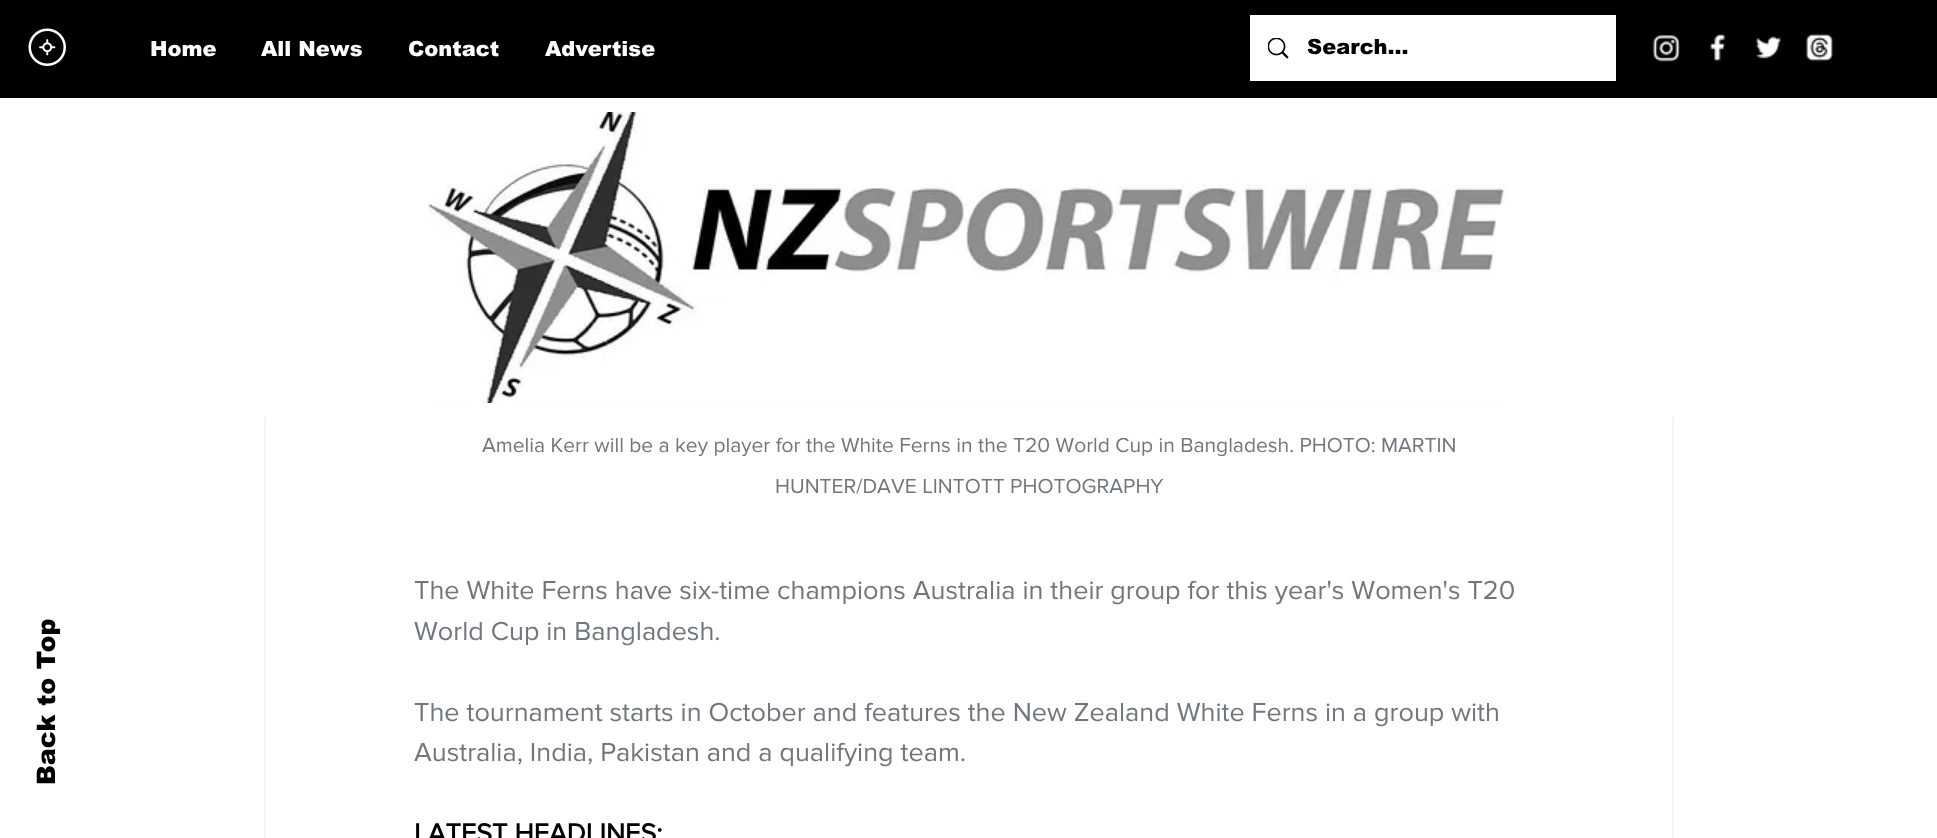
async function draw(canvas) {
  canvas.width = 1937;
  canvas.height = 838;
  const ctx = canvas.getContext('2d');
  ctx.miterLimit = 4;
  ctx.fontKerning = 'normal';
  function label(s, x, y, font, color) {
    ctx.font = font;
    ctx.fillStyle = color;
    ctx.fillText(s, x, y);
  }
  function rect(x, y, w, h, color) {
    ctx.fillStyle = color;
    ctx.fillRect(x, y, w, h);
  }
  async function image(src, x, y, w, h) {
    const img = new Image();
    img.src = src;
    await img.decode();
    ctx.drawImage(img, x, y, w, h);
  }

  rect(0, 0, 1937, 838, '#fff');
  ctx.strokeStyle = '#f5f5f5';
  ctx.lineWidth = 2;
  ctx.strokeRect(265, -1, 1408, 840);
  rect(0, 0, 1937, 98, '#000');
  await image('assets/img1.png', 28, 28, 38, 38);
  label('Home', 150, 56, '900 21px arial', '#fff');
  label('All News', 261, 56, '900 21px arial', '#fff');
  label('Contact', 408, 56, '900 21px arial', '#fff');
  label('Advertise', 545, 56, '900 21px arial', '#fff');
  rect(1250, 15, 366, 66, '#fff');
  await image('assets/img2.png', 1268, 38, 21, 21);
  label('Search...', 1307, 54, '900 21px arial', '#000');
  await image('assets/img3.png', 1652, 35, 28, 27);
  await image('assets/img4.png', 1709, 33, 17, 29);
  await image('assets/img5.png', 1756, 36, 25, 23);
  await image('assets/img6.png', 1805, 33, 29, 29);
  rect(264, 98, 1410, 319, '#fff');
  await image('assets/img7.png', 428, 112, 1079, 291);
  ctx.font = '900 25.5px arial';
  ctx.fillStyle = '#000';
  ctx.save();
  ctx.translate(55, 785);
  ctx.rotate(-90 * Math.PI / 180);
  ctx.fillText('Back to Top', 0, 0);
  ctx.restore();
  label('Amelia Kerr will be a key player for the White Ferns in the T20 World Cup in Bangladesh. PHOTO: MARTIN', 482, 452, '21px "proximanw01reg"', '#71767d');
  label('HUNTER/DAVE LINTOTT PHOTOGRAPHY', 775, 493, '21px "proximanw01reg"', '#71767d');
  label('The White Ferns have six-time champions Australia in their group for this year\'s Women\'s T20', 414, 599, '27px "proximanw01reg"', '#71767d');
  label('World Cup in Bangladesh.', 414, 640, '27px "proximanw01reg"', '#71767d');
  label('The tournament starts in October and features the New Zealand White Ferns in a group with', 414, 721, '27px "proximanw01reg"', '#71767d');
  label('Australia, India, Pakistan and a qualifying team.', 414, 761, '27px "proximanw01reg"', '#71767d');
  label('LATEST HEADLINES:', 414, 842, 'bold 27px "proximanw01reg"', '#000');
}

draw(document.querySelector('canvas'));
